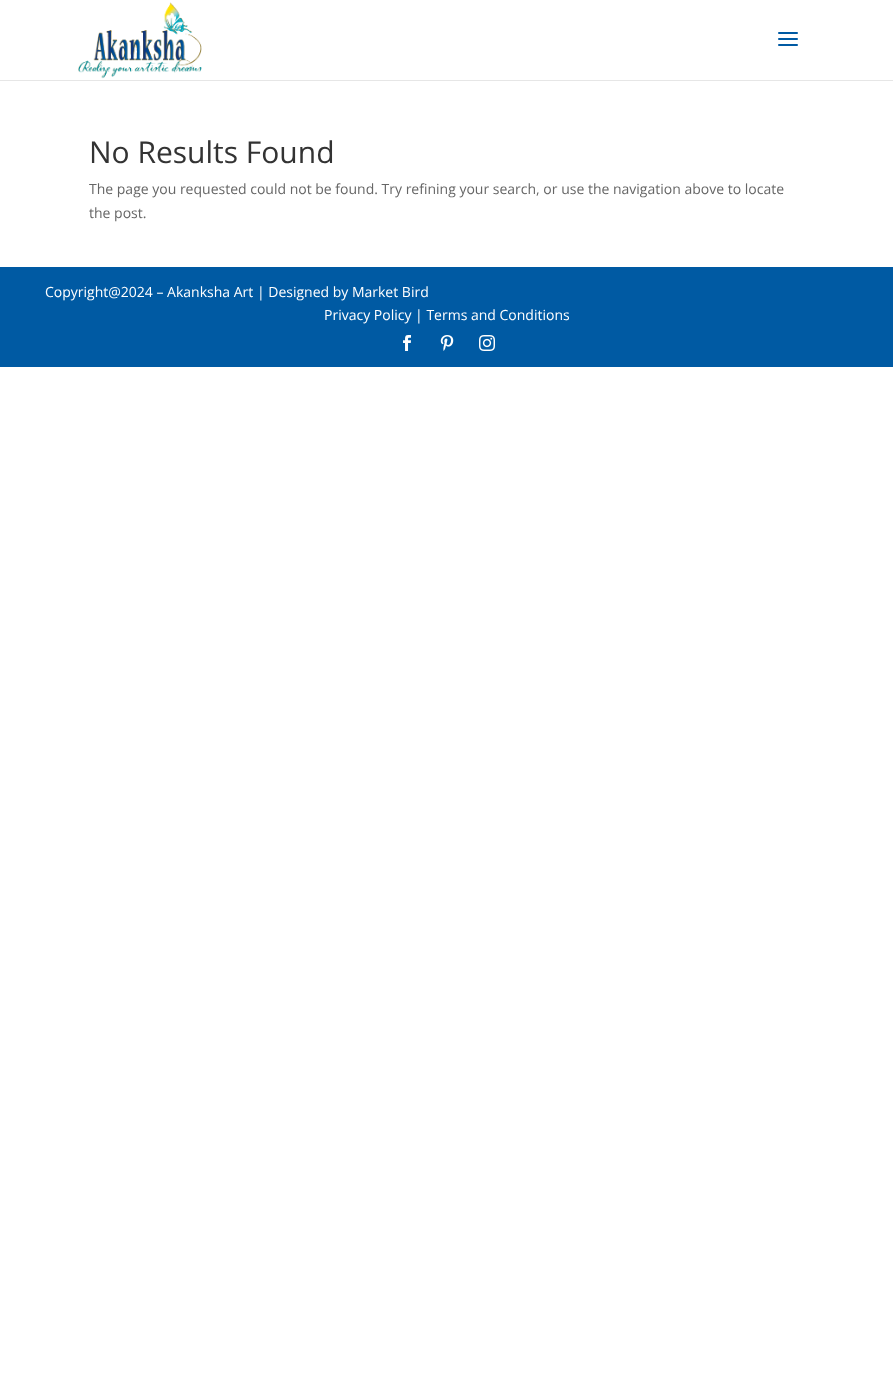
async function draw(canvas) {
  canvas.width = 893;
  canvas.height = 1383;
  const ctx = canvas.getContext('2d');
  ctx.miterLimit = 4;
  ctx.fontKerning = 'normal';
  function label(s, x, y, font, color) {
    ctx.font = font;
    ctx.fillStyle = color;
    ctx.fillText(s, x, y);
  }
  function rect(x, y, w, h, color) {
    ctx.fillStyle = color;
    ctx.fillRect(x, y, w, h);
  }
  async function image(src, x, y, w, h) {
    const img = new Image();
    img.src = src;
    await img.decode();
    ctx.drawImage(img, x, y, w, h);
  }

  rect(0, 0, 893, 1383, '#fff');
  rect(0, 80, 893, 1, '#e6e6e6');
  await image('assets/img1.png', 78, 2, 124, 77);
  await image('assets/img2.png', 778, 32, 20, 14);
  label('No Results Found', 89, 163, '30px Open Sans', '#333');
  label('The page you requested could not be found. Try refining your search, or use the navigation above to locate', 89, 194, '14px Open Sans', '#666');
  label('the post.', 89, 218, '14px Open Sans', '#666');
  rect(0, 267, 893, 100, '#005aa3');
  label('Copyright@2024 – Akanksha Art | Designed by Market Bird', 45, 297, '14px Open Sans', '#fff');
  label('Privacy Policy | Terms and Conditions', 324, 320, '14px Open Sans', '#fff');
  await image('assets/img3.png', 403, 335, 8, 16);
  await image('assets/img4.png', 440, 335, 14, 16);
  await image('assets/img5.png', 479, 335, 16, 16);
}

draw(document.querySelector('canvas'));
